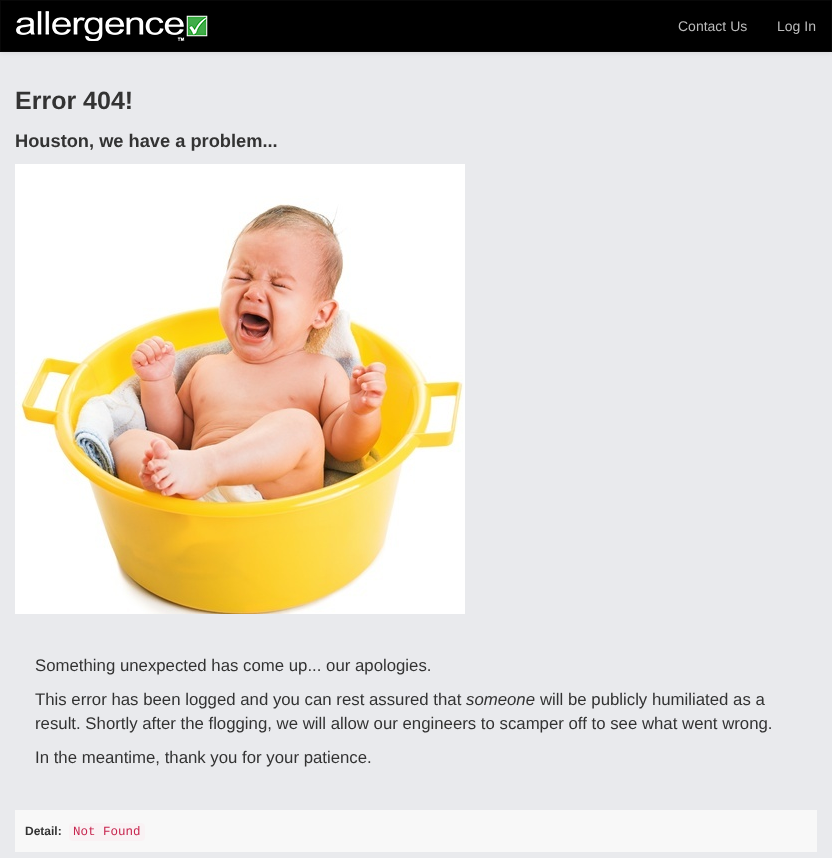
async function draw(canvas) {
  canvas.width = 832;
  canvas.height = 858;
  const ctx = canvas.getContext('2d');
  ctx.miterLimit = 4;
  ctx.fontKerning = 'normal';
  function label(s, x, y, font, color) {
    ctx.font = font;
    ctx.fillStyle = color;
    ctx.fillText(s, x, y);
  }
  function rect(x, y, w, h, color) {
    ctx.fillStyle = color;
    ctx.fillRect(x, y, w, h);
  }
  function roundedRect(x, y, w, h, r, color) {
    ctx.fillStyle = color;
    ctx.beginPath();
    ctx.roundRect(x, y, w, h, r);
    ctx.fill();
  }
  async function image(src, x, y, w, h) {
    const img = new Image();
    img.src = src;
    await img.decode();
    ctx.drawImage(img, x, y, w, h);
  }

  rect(0, 0, 832, 858, '#e9eaed');
  ctx.fillStyle = '#00000012';
  ctx.filter = 'blur(2.5px)';
  ctx.beginPath();
  ctx.rect(0, 1, 832, 52);
  ctx.fill();
  ctx.filter = 'none';
  ctx.strokeStyle = '#080808';
  ctx.strokeRect(0.5, 0.5, 831, 51);
  rect(1, 1, 830, 50, '#000');
  await image('assets/img1.png', 16, 11, 192, 30);
  label('Contact Us', 678, 31, '14px Liberation Sans', '#bbb');
  label('Log In', 777, 31, '14px Liberation Sans', '#bbb');
  label('Error 404!', 15, 109, 'bold 25px Liberation Sans', '#333');
  label('Houston, we have a problem...', 15, 147, 'bold 18.25px Liberation Sans', '#333');
  await image('assets/img2.png', 15, 164, 450, 450);
  label('Something unexpected has come up... our apologies.', 35, 671, '16.8px Liberation Sans', '#333');
  label('This error has been logged and you can rest assured that', 35, 705, '16.8px Liberation Sans', '#333');
  label('someone', 466, 705, 'italic 16.8px Liberation Sans', '#333');
  label('will be publicly humiliated as a', 540, 705, '16.8px Liberation Sans', '#333');
  label('result. Shortly after the flogging, we will allow our engineers to scamper off to see what went wrong.', 35, 729, '16.8px Liberation Sans', '#333');
  label('In the meantime, thank you for your patience.', 35, 763, '16.8px Liberation Sans', '#333');
  rect(15, 810, 802, 42, '#f8f8f8');
  label('Detail:', 25, 835, 'bold 12px Liberation Sans', '#333');
  roundedRect(69, 823, 76, 18, 4, '#f9f2f4');
  label('Not Found', 73, 835, '12.5px Liberation Mono', '#c7254e');
}

draw(document.querySelector('canvas'));
